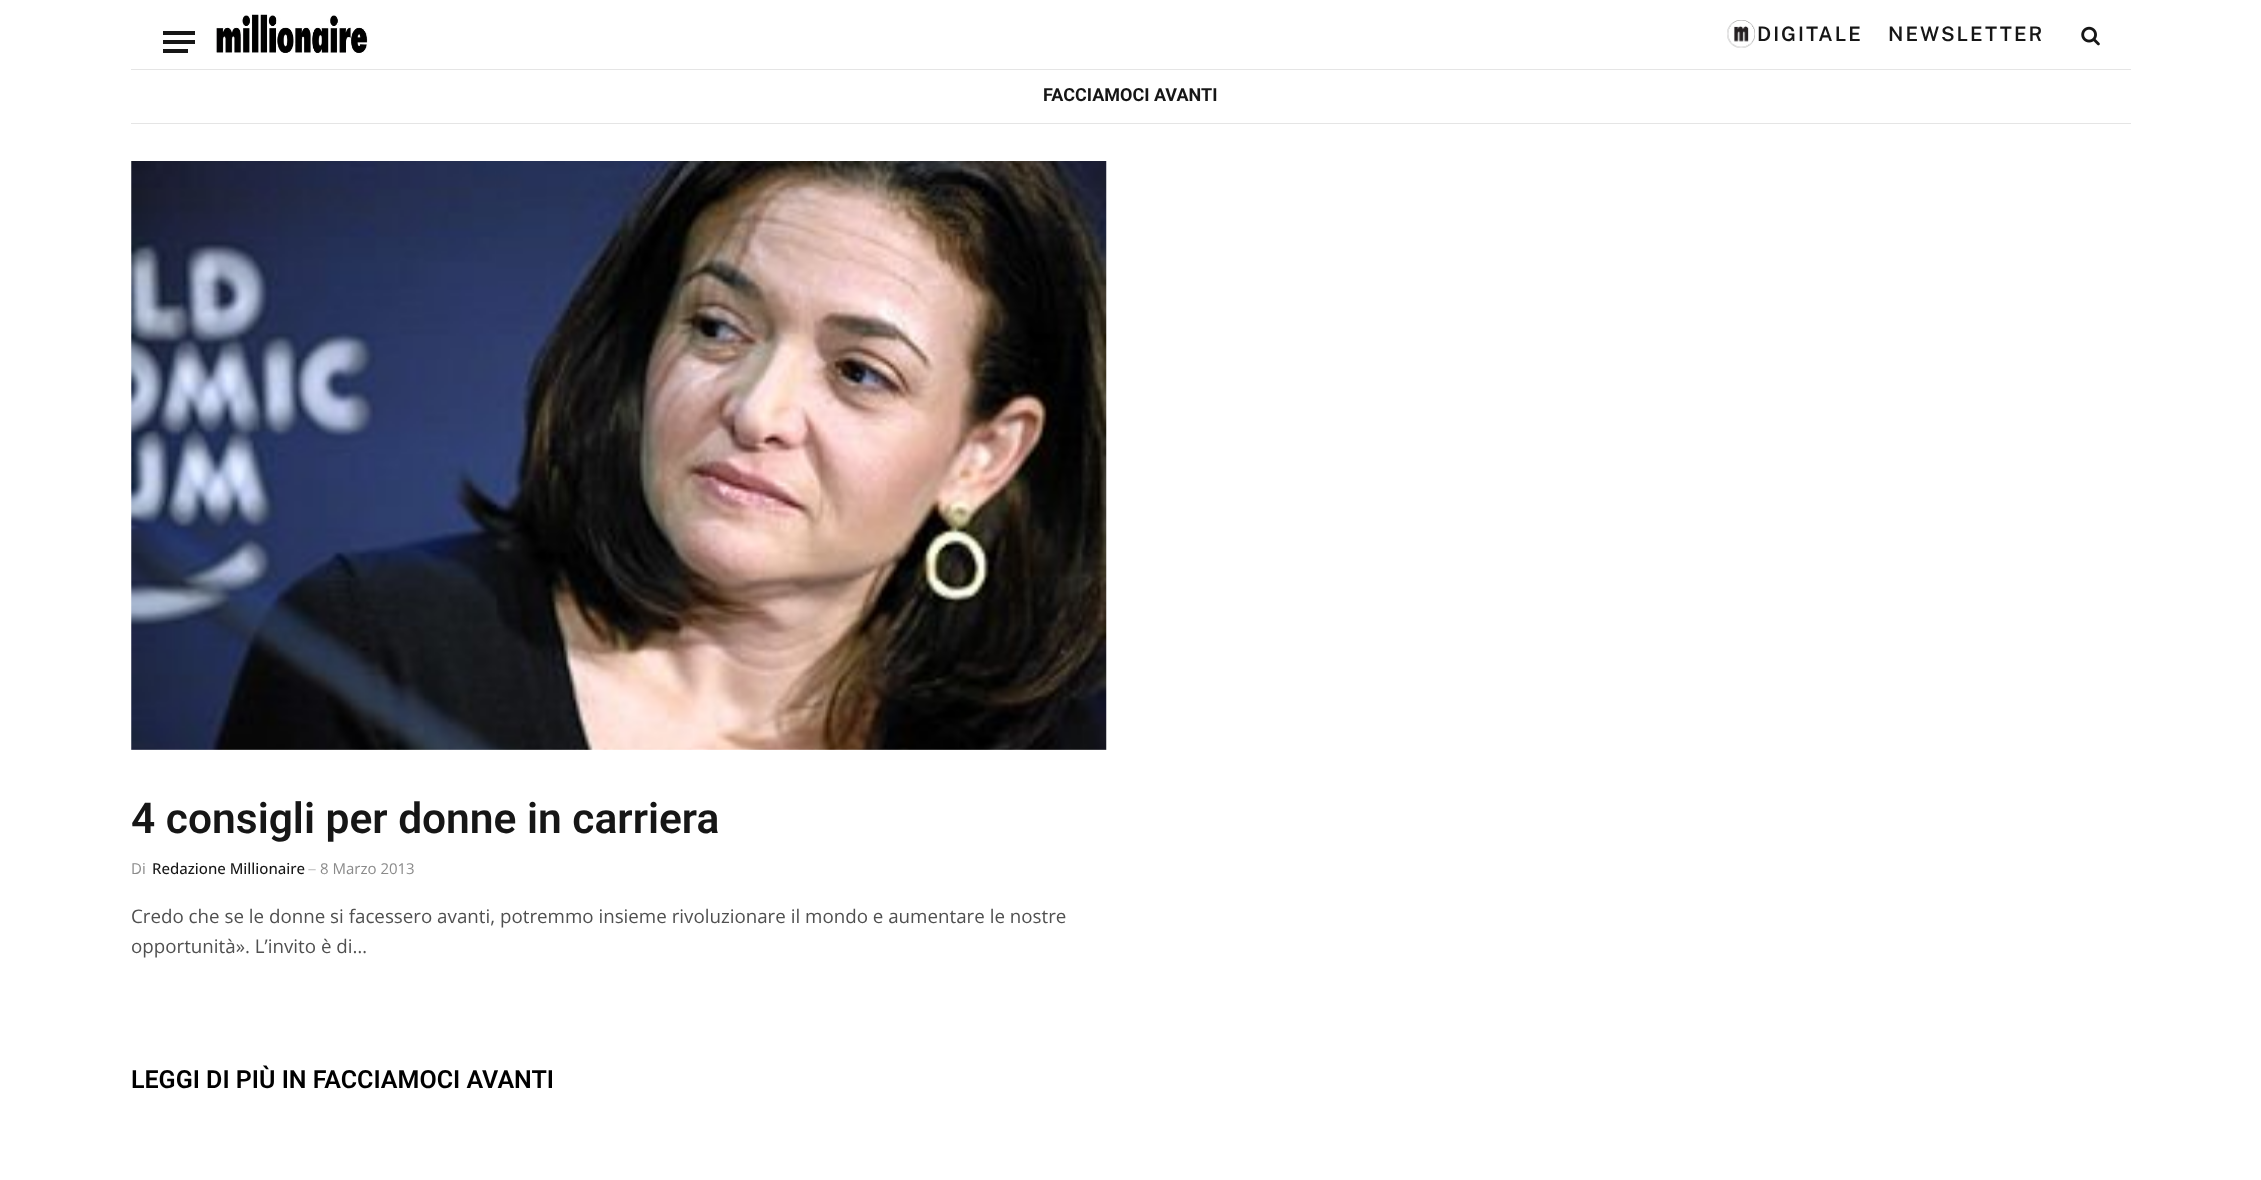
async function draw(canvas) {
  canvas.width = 2261;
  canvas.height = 1180;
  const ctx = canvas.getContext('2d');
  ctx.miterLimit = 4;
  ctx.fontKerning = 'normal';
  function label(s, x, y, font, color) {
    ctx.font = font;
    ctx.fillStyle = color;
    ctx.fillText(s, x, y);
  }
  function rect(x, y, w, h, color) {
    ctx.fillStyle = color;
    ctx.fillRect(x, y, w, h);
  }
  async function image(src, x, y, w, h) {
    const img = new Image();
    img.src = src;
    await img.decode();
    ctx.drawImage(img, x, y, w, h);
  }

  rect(0, 0, 2261, 1180, '#fff');
  rect(131, 69, 2000, 1, '#e5e5e5');
  rect(163, 49, 25, 4, '#161616');
  rect(163, 31, 32, 4, '#161616');
  rect(163, 40, 32, 4, '#161616');
  await image('assets/img1.png', 215, 14, 153, 39);
  await image('assets/img2.png', 1727, 20, 28, 28);
  ctx.letterSpacing = '2px';
  label('DIGITALE', 1757, 41, '600 20px Public Sans', '#161616');
  label('NEWSLETTER', 1888, 41, '600 20px Public Sans', '#161616');
  await image('assets/img3.png', 2081, 26, 19, 20);
  rect(131, 123, 2000, 1, '#e5e5e5');
  ctx.letterSpacing = '0px';
  label('FACCIAMOCI AVANTI', 1043, 101, 'bold 18px Roboto', '#161616');
  await image('assets/img4.png', 131, 161, 976, 589);
  label('4 consigli per donne in carriera', 131, 833, '600 42.5px Roboto', '#161616');
  label('Di', 131, 874, '15px Open Sans', '#8a8a8a');
  label('Redazione Millionaire', 152, 874, '500 15px Open Sans', '#161616');
  label('—', 308, 872, '8px Open Sans', '#8a8a8a');
  label('8 Marzo 2013', 320, 874, '15px Open Sans', '#8a8a8a');
  label('Credo che se le donne si facessero avanti, potremmo insieme rivoluzionare il mondo e aumentare le nostre', 131, 923, '18.75px Open Sans', '#505050');
  label('opportunità». L’invito è di…', 131, 953, '18.75px Open Sans', '#505050');
  label('LEGGI DI PIÙ IN FACCIAMOCI AVANTI', 131, 1088, '600 25px Roboto', '#000');
}

draw(document.querySelector('canvas'));
